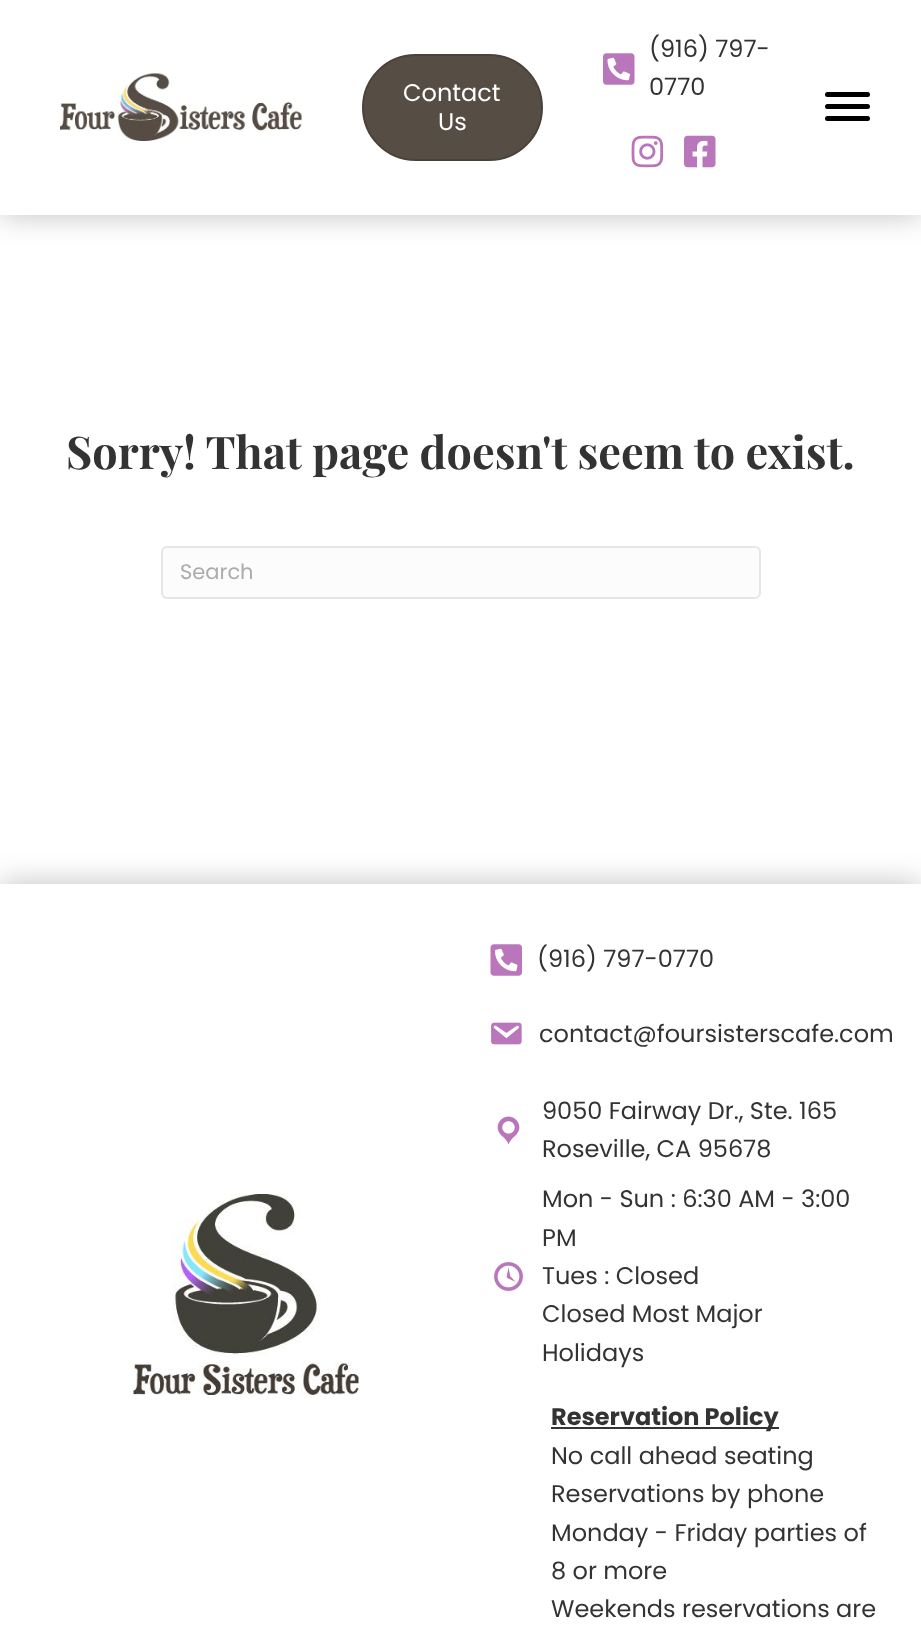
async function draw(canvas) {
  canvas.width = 921;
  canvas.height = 1626;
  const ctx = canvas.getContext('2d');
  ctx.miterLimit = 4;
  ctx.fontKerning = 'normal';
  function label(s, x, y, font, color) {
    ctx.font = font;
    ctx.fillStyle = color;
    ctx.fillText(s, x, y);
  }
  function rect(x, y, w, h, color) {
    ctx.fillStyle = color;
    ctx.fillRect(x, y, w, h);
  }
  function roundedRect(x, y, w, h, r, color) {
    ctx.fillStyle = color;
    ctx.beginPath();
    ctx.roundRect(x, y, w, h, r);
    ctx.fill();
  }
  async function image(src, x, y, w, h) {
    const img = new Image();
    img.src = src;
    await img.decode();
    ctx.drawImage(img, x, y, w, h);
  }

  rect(0, 0, 921, 1626, '#fff');
  ctx.fillStyle = '#00000040';
  ctx.filter = 'blur(15px)';
  ctx.beginPath();
  ctx.rect(0, 0, 921, 215);
  ctx.fill();
  ctx.filter = 'none';
  rect(0, 0, 921, 215, '#fff');
  await image('assets/img1.png', 603, 53, 32, 32);
  label('(916) 797-', 649, 57, '24px Poppins', '#333');
  label('0770', 649, 95, '24px Poppins', '#333');
  await image('assets/img2.png', 631, 135, 33, 33);
  await image('assets/img3.png', 684, 135, 32, 33);
  await image('assets/img4.png', 60, 73, 242, 68);
  ctx.fillStyle = '#564e45';
  ctx.beginPath();
  ctx.roundRect(363, 55, 179, 105, 52.5);
  ctx.fill();
  ctx.strokeStyle = '#4a4239';
  ctx.lineWidth = 2;
  ctx.stroke();
  label('Contact', 403, 101, '24px Poppins', '#fff');
  label('Us', 438, 130, '24px Poppins', '#fff');
  roundedRect(825, 104, 45, 5, 2.5, '#000');
  roundedRect(825, 92, 45, 5, 2.5, '#000');
  roundedRect(825, 116, 45, 5, 2.5, '#000');
  label('Sorry! That page doesn\'t seem to exist.', 66, 469, 'bold 45px Playfair Display', '#333');
  ctx.fillStyle = '#fcfcfc';
  ctx.beginPath();
  ctx.roundRect(162, 547, 598, 51, 5);
  ctx.fill();
  ctx.strokeStyle = '#e6e6e6';
  ctx.stroke();
  label('Search', 180, 579, '21px Poppins', '#acacac');
  ctx.fillStyle = '#00000040';
  ctx.filter = 'blur(15px)';
  ctx.beginPath();
  ctx.rect(0, 884, 921, 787);
  ctx.fill();
  ctx.filter = 'none';
  rect(0, 884, 921, 742, '#fff');
  await image('assets/img5.png', 133, 1194, 226, 201);
  await image('assets/img6.png', 490, 944, 32, 32);
  label('(916) 797-0770', 537, 967, '24px Poppins', '#333');
  await image('assets/img7.png', 491, 1022, 31, 23);
  label('contact@foursisterscafe.com', 539, 1042, '24px Poppins', '#333');
  await image('assets/img8.png', 497, 1116, 23, 29);
  label('9050 Fairway Dr., Ste. 165', 542, 1119, '24px Poppins', '#333');
  label('Roseville, CA 95678', 542, 1157, '24px Poppins', '#333');
  await image('assets/img9.png', 494, 1262, 29, 29);
  label('Mon - Sun : 6:30 AM - 3:00', 542, 1207, '24px Poppins', '#333');
  label('PM', 542, 1246, '24px Poppins', '#333');
  label('Tues : Closed', 542, 1284, '24px Poppins', '#333');
  label('Closed Most Major', 542, 1322, '24px Poppins', '#333');
  label('Holidays', 542, 1361, '24px Poppins', '#333');
  rect(551, 1427, 228, 2, '#333');
  label('Reservation Policy', 551, 1425, 'bold 24px Poppins', '#333');
  label('No call ahead seating', 551, 1464, '24px Poppins', '#333');
  label('Reservations by phone', 551, 1502, '24px Poppins', '#333');
  label('Monday - Friday parties of', 551, 1541, '24px Poppins', '#333');
  label('8 or more', 551, 1579, '24px Poppins', '#333');
  label('Weekends reservations are', 551, 1617, '24px Poppins', '#333');
}

draw(document.querySelector('canvas'));
